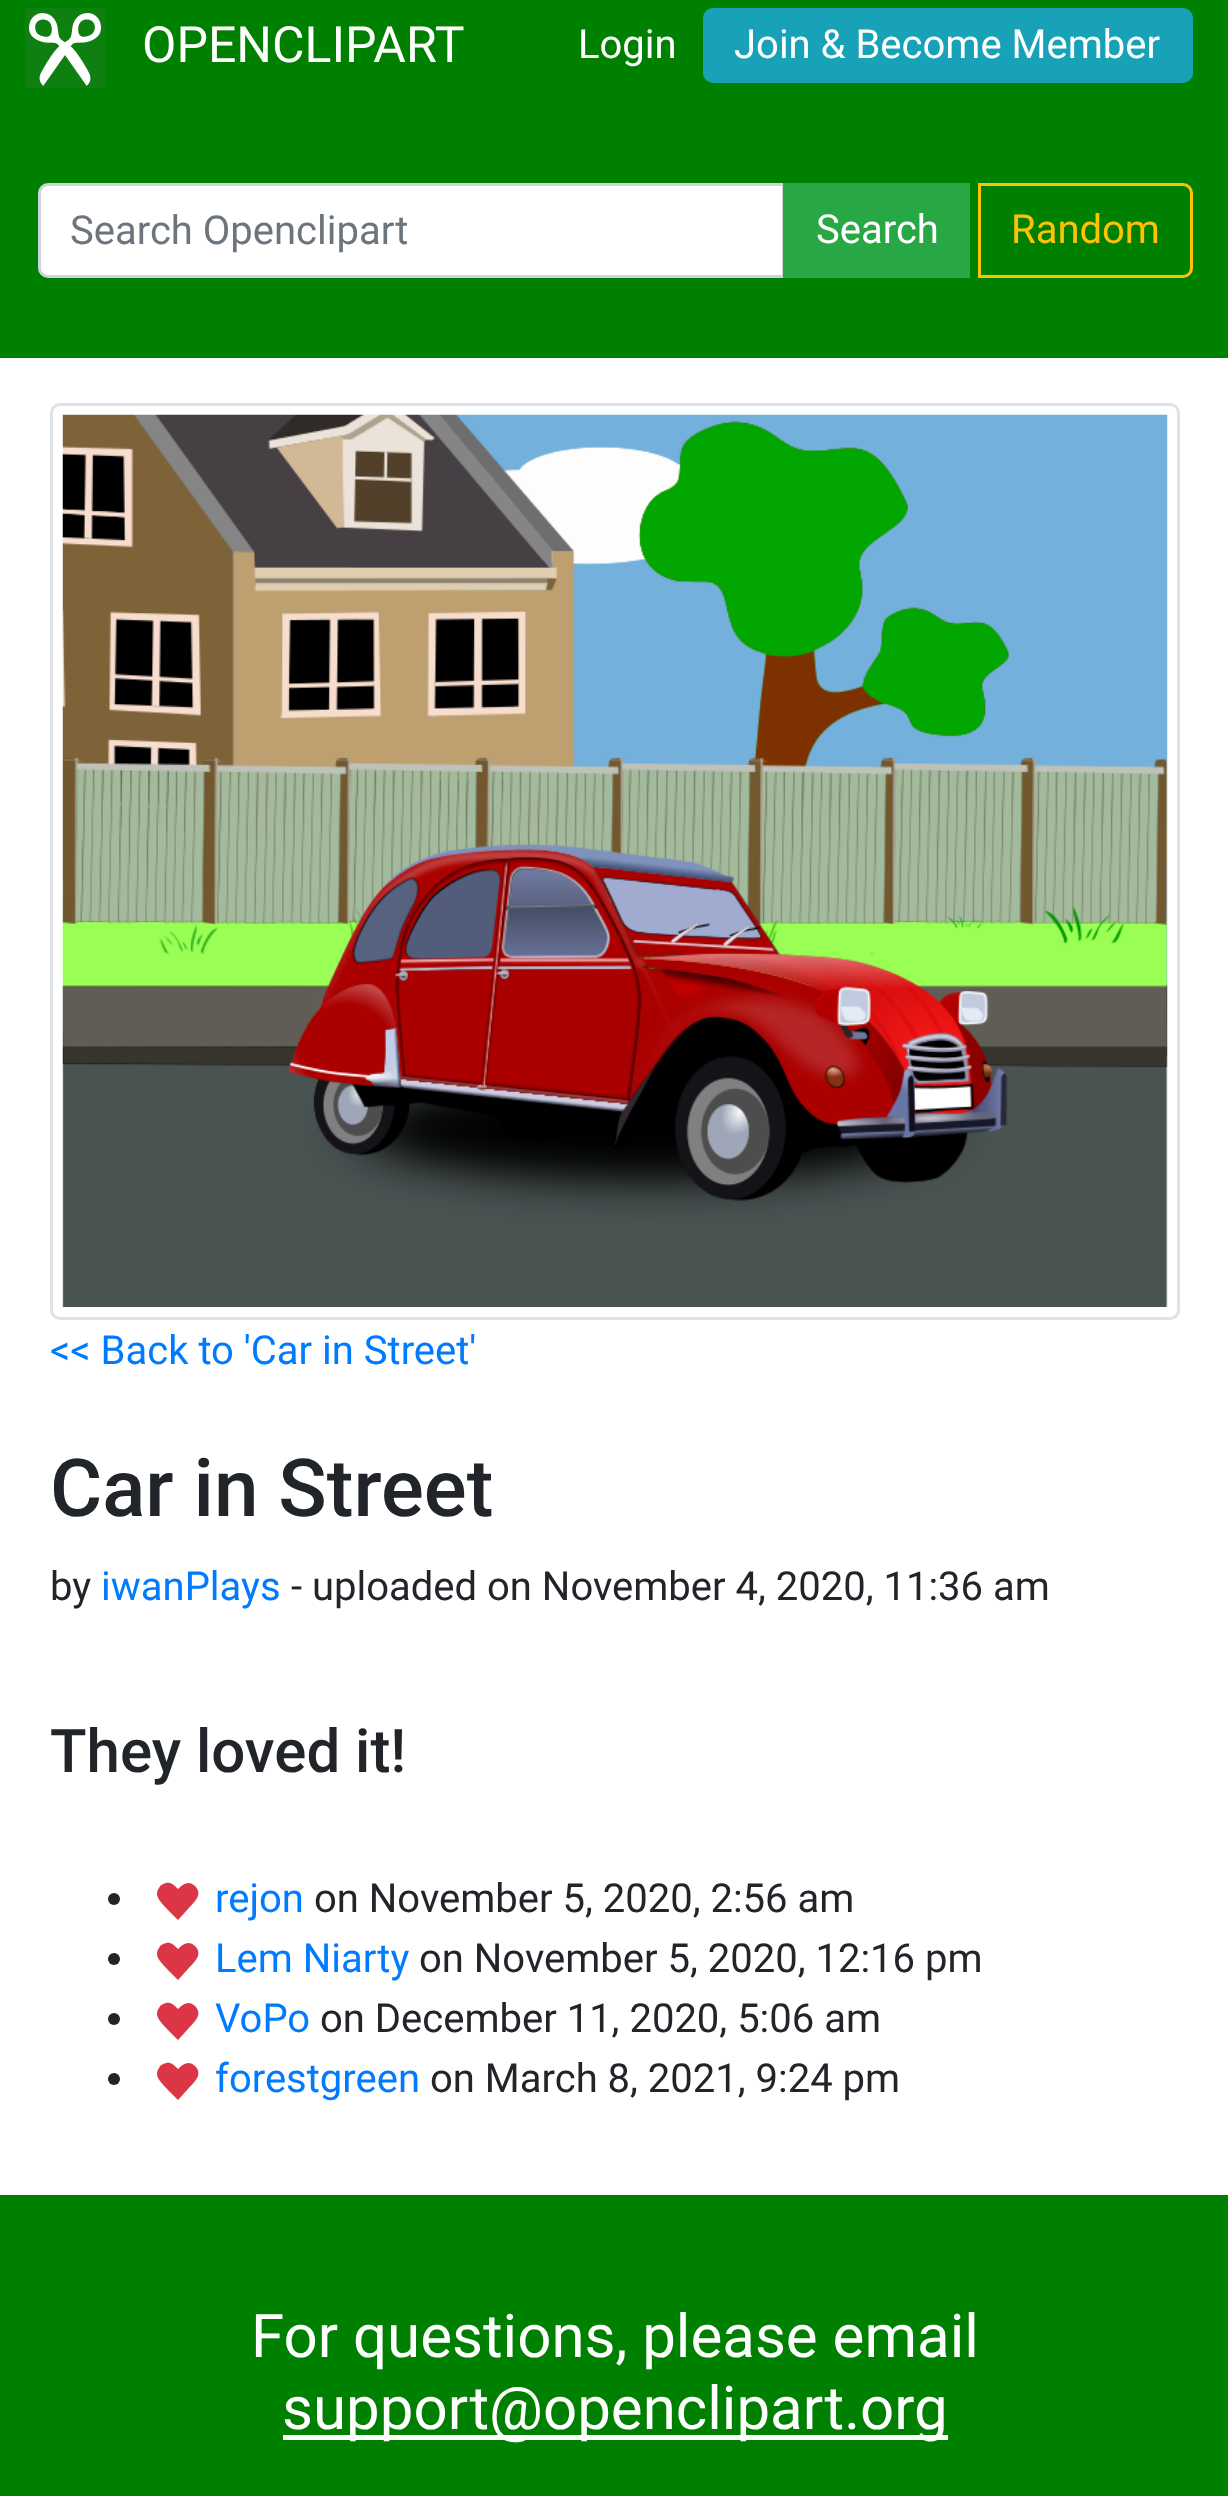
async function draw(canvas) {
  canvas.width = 1228;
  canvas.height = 2496;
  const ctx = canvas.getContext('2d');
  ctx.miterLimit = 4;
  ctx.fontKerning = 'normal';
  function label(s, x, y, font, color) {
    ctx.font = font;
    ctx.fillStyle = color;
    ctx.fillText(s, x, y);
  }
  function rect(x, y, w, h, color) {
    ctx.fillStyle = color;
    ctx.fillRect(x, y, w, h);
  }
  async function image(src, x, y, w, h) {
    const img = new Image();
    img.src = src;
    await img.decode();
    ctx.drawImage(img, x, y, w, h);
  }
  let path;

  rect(0, 0, 1228, 2496, '#fff');
  rect(0, 0, 1228, 358, '#008000');
  await image('assets/img1.png', 25, 8, 80, 80);
  label('OPENCLIPART', 142, 62, '50px Roboto', '#fff');
  label('Login', 578, 58, '40px Roboto', '#fff');
  ctx.fillStyle = '#17a2b8';
  ctx.beginPath();
  ctx.roundRect(704.5, 9.5, 487, 72, 8.5);
  ctx.fill();
  ctx.strokeStyle = '#17a2b8';
  ctx.lineWidth = 3;
  ctx.stroke();
  label('Join & Become Member', 734, 58, '40px Roboto', '#fff');
  ctx.beginPath();
  ctx.roundRect(39.5, 184.5, 744, 92, [8.5, 0, 0, 8.5]);
  ctx.fill();
  ctx.strokeStyle = '#ced4da';
  ctx.stroke();
  label('Search Openclipart', 70, 244, '40px Roboto', '#6c757d');
  rect(783, 183, 187, 95, '#28a745');
  label('Search', 816, 243, '40px Roboto', '#fff');
  ctx.beginPath();
  ctx.roundRect(979.5, 184.5, 212, 92, [0, 8.5, 8.5, 0]);
  ctx.strokeStyle = '#ffc107';
  ctx.stroke();
  label('Random', 1011, 243, '40px Roboto', '#ffc107');
  ctx.beginPath();
  ctx.roundRect(51.5, 404.5, 1127, 914, 8.5);
  ctx.strokeStyle = '#dee2e6';
  ctx.stroke();
  await image('assets/img2.png', 62, 414, 1106, 893);
  label('<< Back to \'Car in Street\'', 50, 1364, '40px Roboto', '#007bff');
  label('Car in Street', 50, 1516, '500 80px Roboto', '#212529');
  label('by', 50, 1600, '40px Roboto', '#212529');
  label('iwanPlays', 101, 1600, '40px Roboto', '#007bff');
  label('- uploaded on November 4, 2020, 11:36 am', 291, 1600, '40px Roboto', '#212529');
  label('They loved it!', 50, 1772, '500 60px Roboto', '#212529');
  ctx.beginPath();
  ctx.arc(114, 1899, 6, 0, 2 * Math.PI);
  ctx.fill();
  ctx.fillStyle = '#dc3545';
  path = new Path2D('M195 1886C189 1880 183 1884 178 1889C174 1885 171 1882 166 1883C163 1884 160 1885 159 1888C153 1896 162 1903 167 1909L178 1920L188 1909C193 1903 204 1895 195 1886Z');
  ctx.fill(path);
  label('rejon', 215, 1912, '40px Roboto', '#007bff');
  label('on November 5, 2020, 2:56 am', 314, 1912, '40px Roboto', '#212529');
  ctx.beginPath();
  ctx.arc(114, 1959, 6, 0, 2 * Math.PI);
  ctx.fill();
  ctx.fillStyle = '#dc3545';
  path = new Path2D('M195 1946C189 1940 183 1944 178 1949C174 1945 171 1942 166 1943C163 1944 160 1945 159 1948C153 1956 162 1963 167 1969L178 1980L188 1969C193 1963 204 1955 195 1946Z');
  ctx.fill(path);
  label('Lem Niarty', 215, 1972, '40px Roboto', '#007bff');
  label('on November 5, 2020, 12:16 pm', 419, 1972, '40px Roboto', '#212529');
  ctx.beginPath();
  ctx.arc(114, 2019, 6, 0, 2 * Math.PI);
  ctx.fill();
  ctx.fillStyle = '#dc3545';
  path = new Path2D('M195 2006C189 2000 183 2004 178 2009C174 2005 171 2002 166 2003C163 2004 160 2005 159 2008C153 2016 162 2023 167 2029L178 2040L188 2029C193 2023 204 2015 195 2006Z');
  ctx.fill(path);
  label('VoPo', 215, 2032, '40px Roboto', '#007bff');
  label('on December 11, 2020, 5:06 am', 320, 2032, '40px Roboto', '#212529');
  ctx.beginPath();
  ctx.arc(114, 2079, 6, 0, 2 * Math.PI);
  ctx.fill();
  ctx.fillStyle = '#dc3545';
  path = new Path2D('M195 2066C189 2060 183 2064 178 2069C174 2065 171 2062 166 2063C163 2064 160 2065 159 2068C153 2076 162 2083 167 2089L178 2100L188 2089C193 2083 204 2075 195 2066Z');
  ctx.fill(path);
  label('forestgreen', 215, 2092, '40px Roboto', '#007bff');
  label('on March 8, 2021, 9:24 pm', 430, 2092, '40px Roboto', '#212529');
  rect(0, 2195, 1228, 301, '#008000');
  label('For questions, please email', 251, 2357, '60px Roboto', '#fff');
  rect(283, 2435, 665, 5, '#fff');
  label('support@openclipart.org', 282, 2429, '60px Roboto', '#fff');
}

draw(document.querySelector('canvas'));
